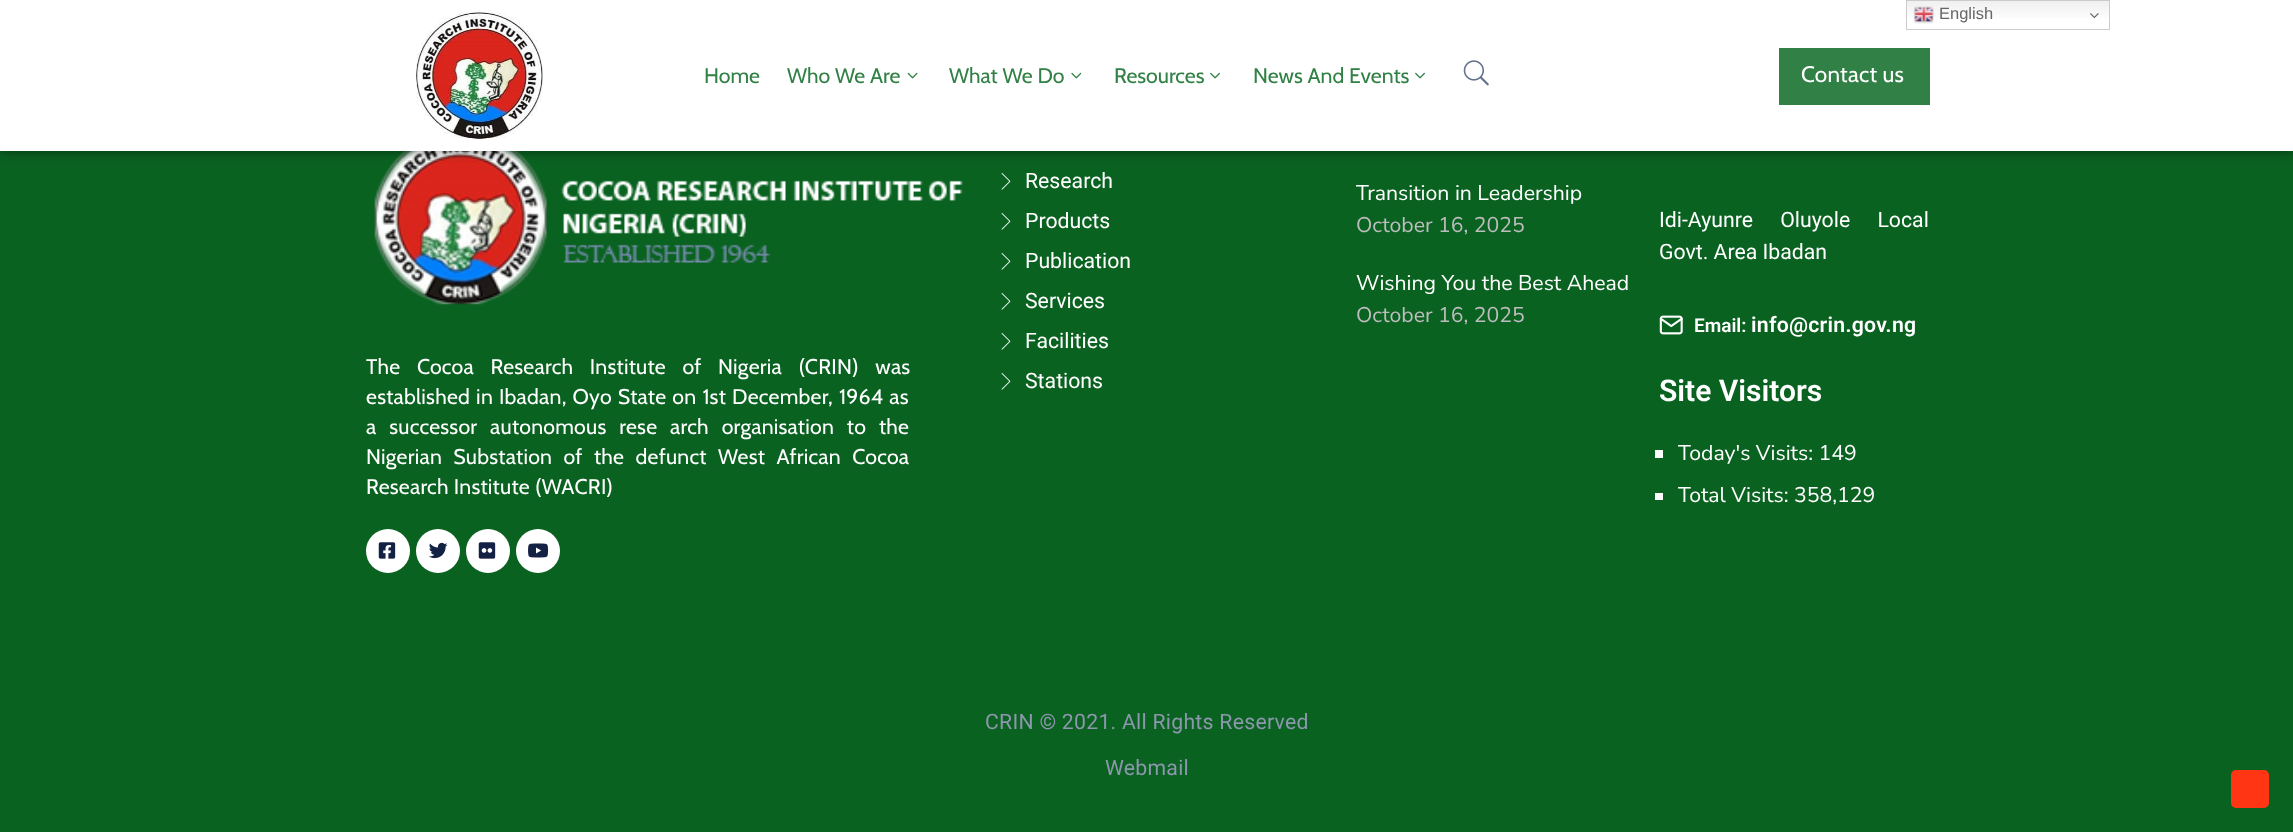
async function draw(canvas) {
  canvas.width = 2293;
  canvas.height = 832;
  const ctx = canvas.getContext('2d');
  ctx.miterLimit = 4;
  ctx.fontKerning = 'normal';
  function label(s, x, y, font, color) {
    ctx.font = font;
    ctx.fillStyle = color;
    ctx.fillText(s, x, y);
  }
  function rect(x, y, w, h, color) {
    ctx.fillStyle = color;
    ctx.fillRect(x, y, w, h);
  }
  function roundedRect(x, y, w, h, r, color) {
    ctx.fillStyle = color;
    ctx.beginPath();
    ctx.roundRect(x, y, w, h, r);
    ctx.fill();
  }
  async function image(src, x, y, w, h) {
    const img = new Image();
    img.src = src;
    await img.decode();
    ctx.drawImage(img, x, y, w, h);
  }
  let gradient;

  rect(0, 0, 2293, 832, '#0a6221');
  await image('assets/img8.png', 374, 151, 589, 154);
  ctx.fillStyle = '#00000080';
  ctx.filter = 'blur(6px)';
  ctx.beginPath();
  ctx.rect(0, 0, 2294, 151);
  ctx.fill();
  ctx.filter = 'none';
  rect(0, 0, 2293, 151, '#fff');
  gradient = ctx.createLinearGradient(2008, 0, 2008, 30);
  gradient.addColorStop(0, '#efefef');
  gradient.addColorStop(0.7, '#fff');
  ctx.fillStyle = gradient;
  ctx.fillRect(1907, 1, 202, 17);
  ctx.strokeStyle = '#ccc';
  ctx.strokeRect(1906.5, 0.5, 203, 29);
  await image('assets/img1.png', 1913, 6, 21, 18);
  label('English', 1939, 19, '16.5px Liberation Sans', '#666');
  await image('assets/img2.png', 2090, 13, 9, 6);
  await image('assets/img3.png', 416, 12, 127, 127);
  label('Home', 704, 83, '21.25px Cabin', '#318146');
  label('Who We Are', 787, 83, '21.25px Cabin', '#318146');
  await image('assets/img4.png', 907, 72, 11, 7);
  label('What We Do', 949, 83, '21.25px Cabin', '#318146');
  await image('assets/img5.png', 1071, 72, 11, 7);
  label('Resources', 1114, 83, '21.25px Cabin', '#318146');
  await image('assets/img6.png', 1210, 72, 10, 7);
  label('News And Events', 1253, 83, '21.25px Cabin', '#318146');
  await image('assets/img6.png', 1415, 72, 10, 7);
  await image('assets/img7.png', 1463, 60, 26, 26);
  rect(1779, 48, 151, 57, '#318146');
  ctx.letterSpacing = '0.25px';
  label('Contact us', 1801, 82, '22.5px Cabin', '#fff');
  ctx.wordSpacing = '11.5px';
  label('The Cocoa Research Institute of Nigeria (CRIN) was', 366, 374, '21.25px Cabin', '#fff');
  ctx.wordSpacing = '1px';
  label('established in Ibadan, Oyo State on 1st December, 1964 as', 366, 404, '21.25px Cabin', '#fff');
  ctx.wordSpacing = '7.75px';
  label('a successor autonomous rese arch organisation to the', 366, 434, '21.25px Cabin', '#fff');
  ctx.wordSpacing = '6.25px';
  label('Nigerian Substation of the defunct West African Cocoa', 366, 464, '21.25px Cabin', '#fff');
  ctx.wordSpacing = '0px';
  label('Research Institute (WACRI)', 366, 494, '21.25px Cabin', '#fff');
  ctx.beginPath();
  ctx.arc(388, 551, 22, 0, 2 * Math.PI);
  ctx.fill();
  await image('assets/img9.png', 378, 542, 18, 17);
  ctx.beginPath();
  ctx.arc(438, 551, 22, 0, 2 * Math.PI);
  ctx.fill();
  await image('assets/img10.png', 429, 542, 19, 17);
  ctx.beginPath();
  ctx.arc(488, 551, 22, 0, 2 * Math.PI);
  ctx.fill();
  await image('assets/img11.png', 478, 542, 18, 17);
  ctx.beginPath();
  ctx.arc(538, 551, 22, 0, 2 * Math.PI);
  ctx.fill();
  await image('assets/img12.png', 528, 543, 21, 15);
  await image('assets/img13.png', 1001, 173, 10, 17);
  ctx.letterSpacing = '0px';
  label('Research', 1025, 188, '21.25px Roboto', '#fff');
  await image('assets/img13.png', 1001, 213, 10, 17);
  label('Products', 1025, 228, '21.25px Roboto', '#fff');
  await image('assets/img13.png', 1001, 253, 10, 17);
  label('Publication', 1025, 268, '21.25px Roboto', '#fff');
  await image('assets/img13.png', 1001, 293, 10, 17);
  label('Services', 1025, 308, '21.25px Roboto', '#fff');
  await image('assets/img13.png', 1001, 333, 10, 17);
  label('Facilities', 1025, 348, '21.25px Roboto', '#fff');
  await image('assets/img13.png', 1001, 373, 10, 17);
  label('Stations', 1025, 388, '21.25px Roboto', '#fff');
  label('Transition in Leadership', 1356, 200, '21.25px Nunito Sans', '#fff');
  label('October 16, 2025', 1356, 232, '21.25px Nunito Sans', '#bdbdbd');
  label('Wishing You the Best Ahead', 1356, 290, '21.25px Nunito Sans', '#fff');
  label('October 16, 2025', 1356, 322, '21.25px Nunito Sans', '#bdbdbd');
  ctx.wordSpacing = '22px';
  label('Idi-Ayunre Oluyole Local', 1659, 227, '21.25px Roboto', '#fff');
  ctx.wordSpacing = '0px';
  label('Govt. Area Ibadan', 1659, 259, '21.25px Roboto', '#fff');
  await image('assets/img14.png', 1659, 315, 24, 20);
  label('Email:', 1694, 332, '600 19px Roboto', '#fff');
  ctx.letterSpacing = '0.25px';
  label('info@crin.gov.ng', 1751, 332, '600 21.25px Roboto', '#fff');
  ctx.letterSpacing = '0px';
  label('Site Visitors', 1659, 401, '600 30px Roboto', '#fff');
  rect(1655, 450, 8, 8, '#fff');
  label('Today\'s Visits: 149', 1678, 460, '21.25px Nunito Sans', '#fff');
  rect(1655, 493, 8, 7, '#fff');
  label('Total Visits: 358,129', 1678, 502, '21.25px Nunito Sans', '#fff');
  ctx.letterSpacing = '0.25px';
  label('CRIN © 2021. All Rights Reserved', 985, 729, '21.25px Roboto', '#8c96ac');
  label('Webmail', 1105, 775, '21.25px Roboto', '#8c96ac');
  roundedRect(2231, 770, 38, 38, 5, '#ff3514');
}

draw(document.querySelector('canvas'));
